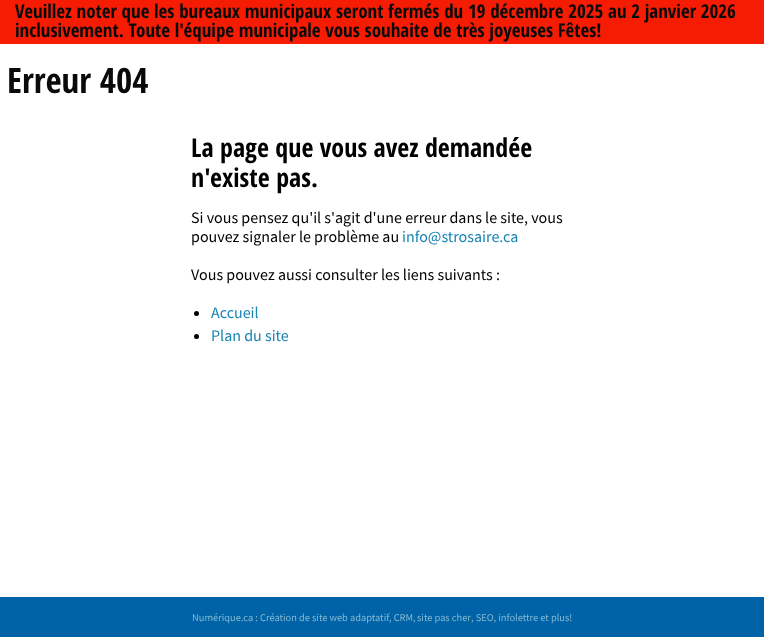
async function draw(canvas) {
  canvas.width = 764;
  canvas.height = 637;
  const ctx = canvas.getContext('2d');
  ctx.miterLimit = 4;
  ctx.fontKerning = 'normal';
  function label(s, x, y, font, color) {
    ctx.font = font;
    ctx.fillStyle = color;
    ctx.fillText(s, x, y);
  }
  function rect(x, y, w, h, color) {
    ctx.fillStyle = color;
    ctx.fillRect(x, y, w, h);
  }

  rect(0, 0, 764, 637, '#fff');
  rect(0, 0, 764, 44, '#f61c04');
  label('Veuillez noter que les bureaux municipaux seront fermés du 19 décembre 2025 au 2 janvier 2026', 15, 18, 'bold 19px Open Sans Condensed', '#0a0a0a');
  label('inclusivement. Toute l\'équipe municipale vous souhaite de très joyeuses Fêtes!', 15, 37, 'bold 19px Open Sans Condensed', '#0a0a0a');
  label('Erreur 404', 7, 93, 'bold 35px Open Sans Condensed', '#0a0a0a');
  label('La page que vous avez demandée', 191, 157, 'bold 26px Open Sans Condensed', '#000');
  label('n\'existe pas.', 191, 187, 'bold 26px Open Sans Condensed', '#000');
  label('Si vous pensez qu\'il s\'agit d\'une erreur dans le site, vous', 191, 223, '16px Source Sans Pro', '#000');
  label('pouvez signaler le problème au', 191, 242, '16px Source Sans Pro', '#000');
  label('info@strosaire.ca', 402, 242, '16px Source Sans Pro', '#1784b2');
  label('Vous pouvez aussi consulter les liens suivants :', 191, 280, '16px Source Sans Pro', '#000');
  ctx.beginPath();
  ctx.arc(196.5, 313.5, 2.5, 0, 2 * Math.PI);
  ctx.fill();
  label('Accueil', 211, 318, '16px Source Sans Pro', '#1784b2');
  ctx.fillStyle = '#000';
  ctx.beginPath();
  ctx.arc(196.5, 336.5, 2.5, 0, 2 * Math.PI);
  ctx.fill();
  label('Plan du site', 211, 341, '16px Source Sans Pro', '#1784b2');
  rect(0, 597, 764, 40, '#0063a7');
  label('Numérique.ca :', 192, 621, '10.4px Source Sans Pro', '#83bad1');
  label('Création de site web adaptatif', 260, 621, '10.4px Source Sans Pro', '#83bad1');
  label(', CRM,', 389, 621, '10.4px Source Sans Pro', '#83bad1');
  label('site pas cher', 417, 621, '10.4px Source Sans Pro', '#83bad1');
  label(', SEO, infolettre et plus!', 471, 621, '10.4px Source Sans Pro', '#83bad1');
}

draw(document.querySelector('canvas'));
